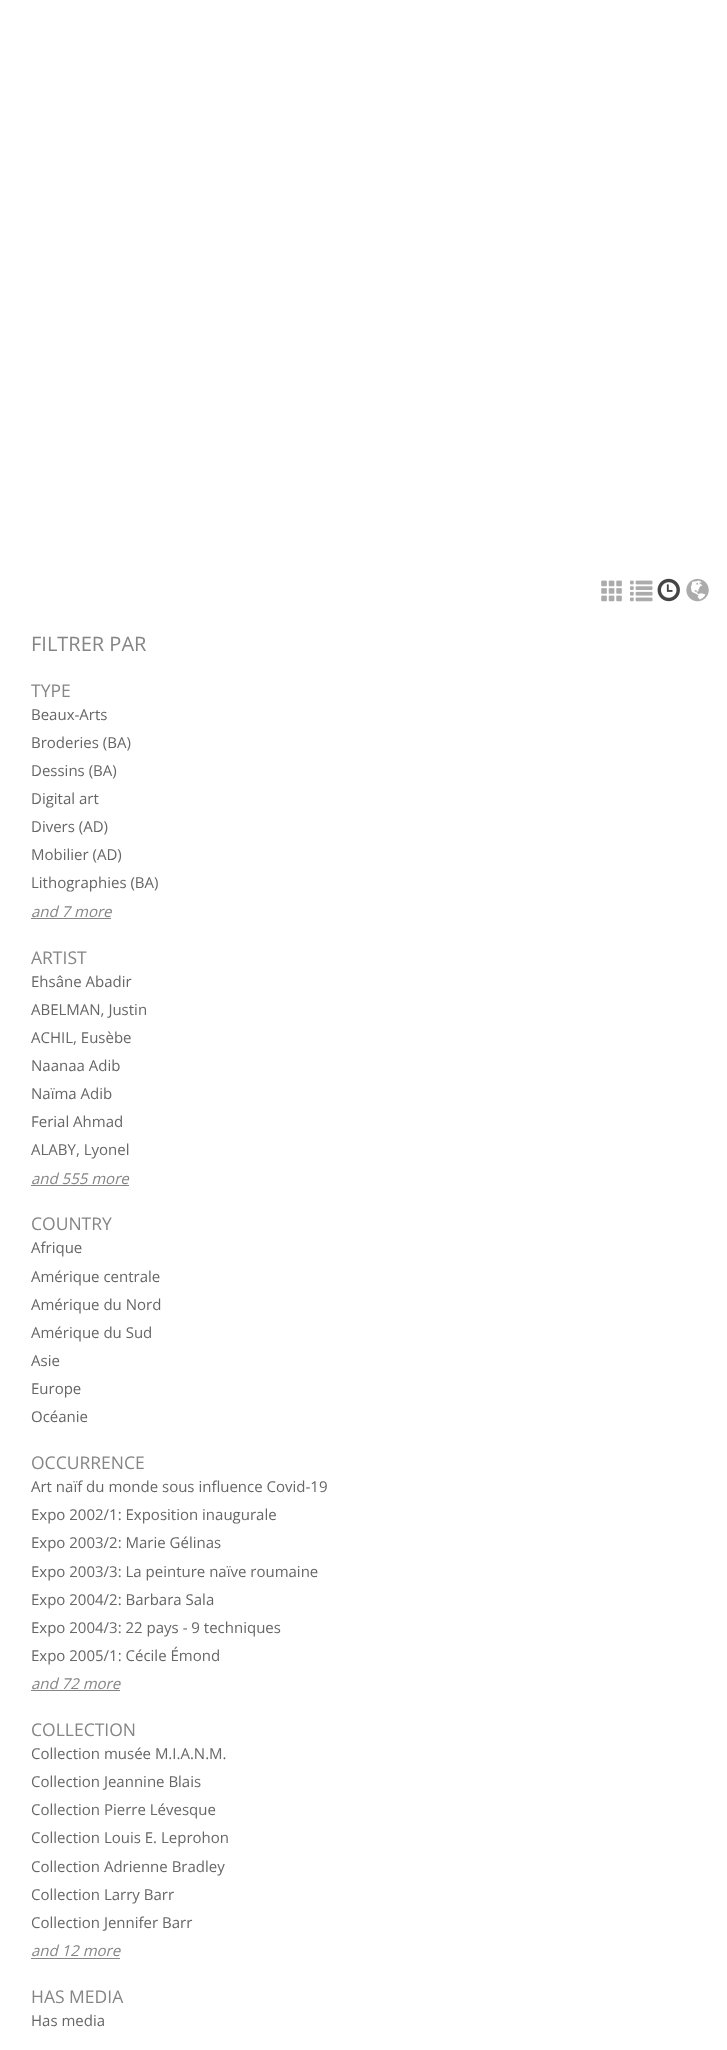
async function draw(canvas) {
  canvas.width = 727;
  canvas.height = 2050;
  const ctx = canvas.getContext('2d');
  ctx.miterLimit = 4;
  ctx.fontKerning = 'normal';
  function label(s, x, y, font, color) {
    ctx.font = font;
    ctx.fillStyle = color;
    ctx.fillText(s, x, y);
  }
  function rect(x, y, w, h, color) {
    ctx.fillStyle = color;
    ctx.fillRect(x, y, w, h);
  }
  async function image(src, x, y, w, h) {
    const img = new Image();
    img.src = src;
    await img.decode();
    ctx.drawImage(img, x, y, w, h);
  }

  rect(0, 0, 727, 2050, '#fff');
  await image('assets/img1.png', 601, 580, 21, 22);
  await image('assets/img2.png', 630, 580, 23, 22);
  await image('assets/img3.png', 657, 578, 23, 24);
  await image('assets/img4.png', 686, 578, 23, 24);
  label('FILTRER PAR', 31, 651, '20px Open Sans', '#858585');
  label('TYPE', 31, 697, '17.5px Open Sans', '#858585');
  label('Beaux-Arts', 31, 720, '15px Open Sans', '#666');
  label('Broderies (BA)', 31, 748, '15px Open Sans', '#666');
  label('Dessins (BA)', 31, 776, '15px Open Sans', '#666');
  label('Digital art', 31, 804, '15px Open Sans', '#666');
  label('Divers (AD)', 31, 832, '15px Open Sans', '#666');
  label('Mobilier (AD)', 31, 860, '15px Open Sans', '#666');
  label('Lithographies (BA)', 31, 888, '15px Open Sans', '#666');
  label('and 7 more', 31, 917, 'italic 15px Open Sans', '#858585');
  rect(31, 918, 80, 1, '#858585');
  label('ARTIST', 31, 964, '17.5px Open Sans', '#858585');
  label('Ehsâne Abadir', 31, 987, '15px Open Sans', '#666');
  label('ABELMAN, Justin', 31, 1015, '15px Open Sans', '#666');
  label('ACHIL, Eusèbe', 31, 1043, '15px Open Sans', '#666');
  label('Naanaa Adib', 31, 1071, '15px Open Sans', '#666');
  label('Naïma Adib', 31, 1099, '15px Open Sans', '#666');
  label('Ferial Ahmad', 31, 1127, '15px Open Sans', '#666');
  label('ALABY, Lyonel', 31, 1155, '15px Open Sans', '#666');
  label('and 555 more', 31, 1184, 'italic 15px Open Sans', '#858585');
  rect(31, 1185, 98, 1, '#858585');
  label('COUNTRY', 31, 1230, '17.5px Open Sans', '#858585');
  label('Afrique', 31, 1253, '15px Open Sans', '#666');
  label('Amérique centrale', 31, 1282, '15px Open Sans', '#666');
  label('Amérique du Nord', 31, 1310, '15px Open Sans', '#666');
  label('Amérique du Sud', 31, 1338, '15px Open Sans', '#666');
  label('Asie', 31, 1366, '15px Open Sans', '#666');
  label('Europe', 31, 1394, '15px Open Sans', '#666');
  label('Océanie', 31, 1422, '15px Open Sans', '#666');
  label('OCCURRENCE', 31, 1469, '17.5px Open Sans', '#858585');
  label('Art naïf du monde sous influence Covid-19', 31, 1492, '15px Open Sans', '#666');
  label('Expo 2002/1: Exposition inaugurale', 31, 1520, '15px Open Sans', '#666');
  label('Expo 2003/2: Marie Gélinas', 31, 1548, '15px Open Sans', '#666');
  label('Expo 2003/3: La peinture naïve roumaine', 31, 1577, '15px Open Sans', '#666');
  label('Expo 2004/2: Barbara Sala', 31, 1605, '15px Open Sans', '#666');
  label('Expo 2004/3: 22 pays - 9 techniques', 31, 1633, '15px Open Sans', '#666');
  label('Expo 2005/1: Cécile Émond', 31, 1661, '15px Open Sans', '#666');
  label('and 72 more', 31, 1689, 'italic 15px Open Sans', '#858585');
  rect(31, 1690, 89, 1, '#858585');
  label('COLLECTION', 31, 1736, '17.5px Open Sans', '#858585');
  label('Collection musée M.I.A.N.M.', 31, 1759, '15px Open Sans', '#666');
  label('Collection Jeannine Blais', 31, 1787, '15px Open Sans', '#666');
  label('Collection Pierre Lévesque', 31, 1815, '15px Open Sans', '#666');
  label('Collection Louis E. Leprohon', 31, 1843, '15px Open Sans', '#666');
  label('Collection Adrienne Bradley', 31, 1872, '15px Open Sans', '#666');
  label('Collection Larry Barr', 31, 1900, '15px Open Sans', '#666');
  label('Collection Jennifer Barr', 31, 1928, '15px Open Sans', '#666');
  label('and 12 more', 31, 1956, 'italic 15px Open Sans', '#858585');
  rect(31, 1958, 89, 1, '#858585');
  label('HAS MEDIA', 31, 2003, '17.5px Open Sans', '#858585');
  label('Has media', 31, 2026, '15px Open Sans', '#666');
}

draw(document.querySelector('canvas'));
